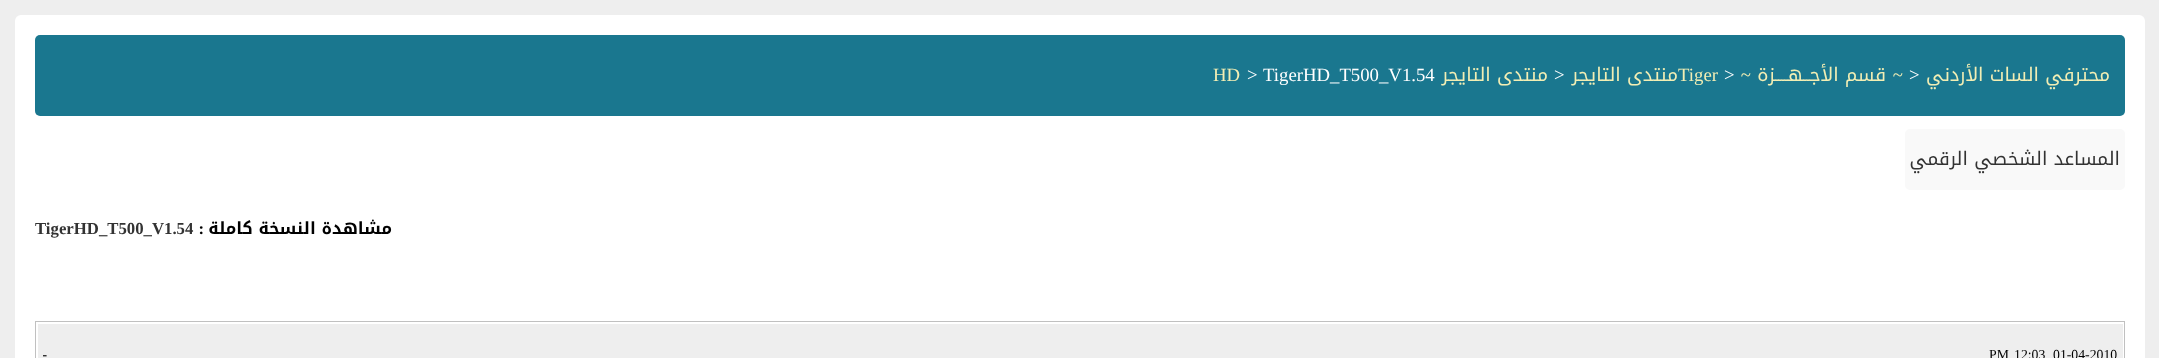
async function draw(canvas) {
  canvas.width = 2159;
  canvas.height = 358;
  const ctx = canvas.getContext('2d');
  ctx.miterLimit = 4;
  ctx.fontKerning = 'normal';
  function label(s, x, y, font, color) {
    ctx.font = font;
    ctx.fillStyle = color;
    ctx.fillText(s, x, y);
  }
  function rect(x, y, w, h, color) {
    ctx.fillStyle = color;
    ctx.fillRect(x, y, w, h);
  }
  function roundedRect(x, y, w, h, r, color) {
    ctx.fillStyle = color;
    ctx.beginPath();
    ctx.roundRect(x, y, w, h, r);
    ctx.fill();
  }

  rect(0, 0, 2159, 358, '#eee');
  roundedRect(15, 15, 2130, 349, 6, '#fff');
  roundedRect(35, 35, 2090, 81, 5, '#1a778f');
  ctx.direction = 'rtl';
  label('محترفي السات الأردني', 2110, 81, '18.75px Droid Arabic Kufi', '#f2eeb4');
  ctx.direction = 'ltr';
  label('>', 1909, 81, '18.75px Liberation Serif', '#fff');
  ctx.direction = 'rtl';
  label('~', 1903, 81, '18.75px Liberation Serif', '#f2eeb4');
  label('قسم الأجــهــــزة', 1886, 81, '18.75px Droid Arabic Kufi', '#f2eeb4');
  label('~', 1751, 81, '18.75px Liberation Serif', '#f2eeb4');
  ctx.direction = 'ltr';
  label('>', 1724, 81, '18.75px Liberation Serif', '#fff');
  label('Tiger', 1678, 81, '18.75px Liberation Serif', '#f2eeb4');
  ctx.direction = 'rtl';
  label('منتدى التايجر', 1678, 81, '18.75px Droid Arabic Kufi', '#f2eeb4');
  ctx.direction = 'ltr';
  label('>', 1554, 81, '18.75px Liberation Serif', '#fff');
  ctx.direction = 'rtl';
  label('منتدى التايجر', 1548, 81, '18.75px Droid Arabic Kufi', '#f2eeb4');
  ctx.direction = 'ltr';
  label('TigerHD_T500_V1.54', 1263, 81, '18.75px Liberation Serif', '#fff');
  label('>', 1247, 81, '18.75px Liberation Serif', '#fff');
  label('HD', 1213, 81, '18.75px Liberation Serif', '#f2eeb4');
  roundedRect(1905, 129, 220, 61, 5, '#f9f9f9');
  ctx.direction = 'rtl';
  label('المساعد الشخصي الرقمي', 2120, 165, '18.75px Droid Arabic Kufi', '#333');
  label('مشاهدة النسخة كاملة', 392, 234, 'bold 16.75px Droid Arabic Kufi', '#000');
  label(':', 204, 234, 'bold 16.75px Liberation Serif', '#000');
  ctx.direction = 'ltr';
  label('TigerHD_T500_V1.54', 35, 234, 'bold 16.75px Liberation Serif', '#333');
  ctx.strokeStyle = '#c0c0c0';
  ctx.strokeRect(35.5, 321.5, 2089, 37);
  rect(38, 324, 2085, 34, '#eee');
  label('01-04-2010', 2053, 359, '13.75px Liberation Serif', '#000');
  label('12:03', 2014, 359, '13.75px Liberation Serif', '#000');
  label('PM', 1989, 359, '13.75px Liberation Serif', '#000');
  ctx.direction = 'rtl';
  label('-', 47, 359, 'bold 13.75px Liberation Serif', '#000');
}

draw(document.querySelector('canvas'));
